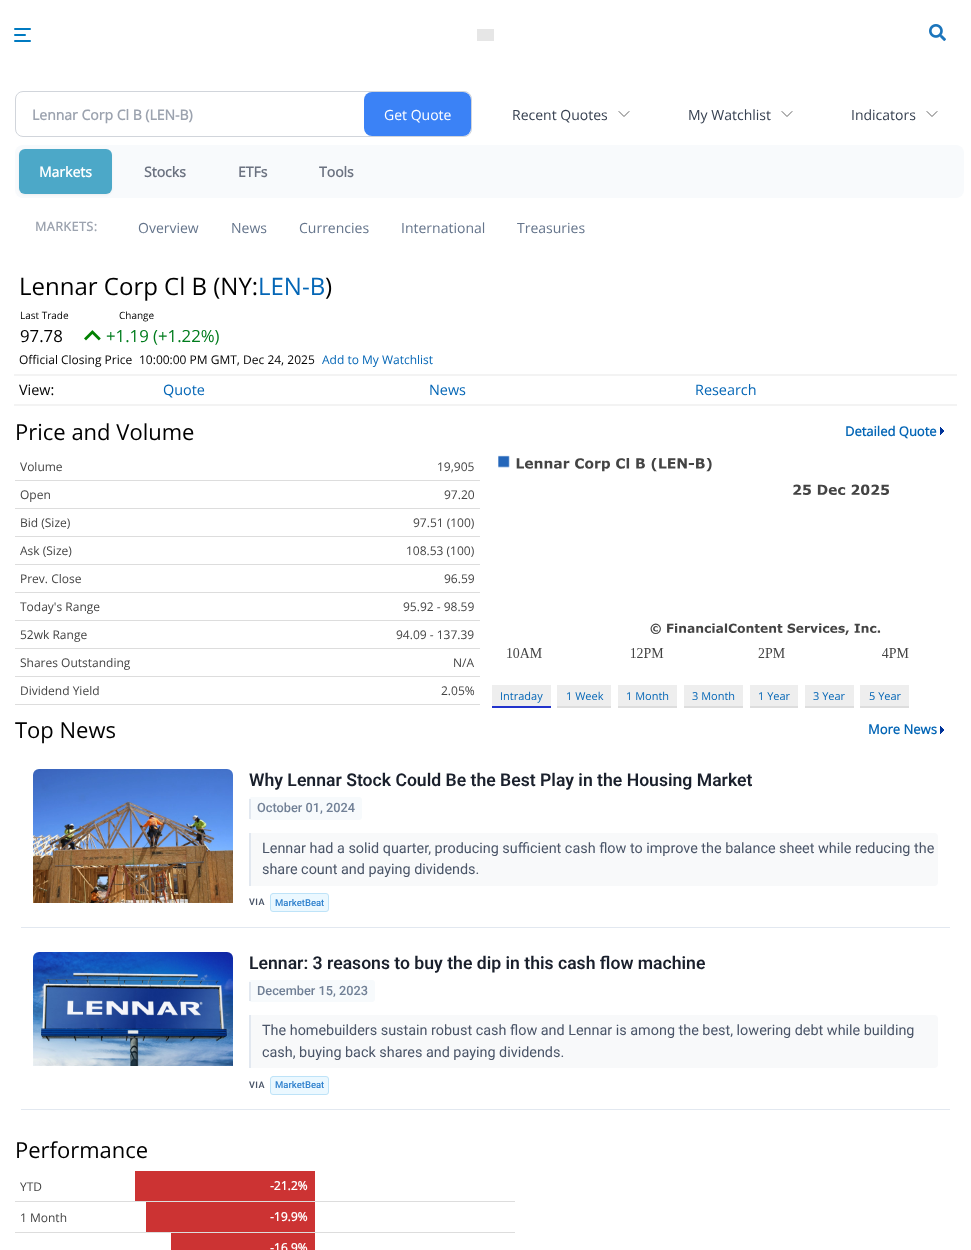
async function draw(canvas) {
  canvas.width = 971;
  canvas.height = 1250;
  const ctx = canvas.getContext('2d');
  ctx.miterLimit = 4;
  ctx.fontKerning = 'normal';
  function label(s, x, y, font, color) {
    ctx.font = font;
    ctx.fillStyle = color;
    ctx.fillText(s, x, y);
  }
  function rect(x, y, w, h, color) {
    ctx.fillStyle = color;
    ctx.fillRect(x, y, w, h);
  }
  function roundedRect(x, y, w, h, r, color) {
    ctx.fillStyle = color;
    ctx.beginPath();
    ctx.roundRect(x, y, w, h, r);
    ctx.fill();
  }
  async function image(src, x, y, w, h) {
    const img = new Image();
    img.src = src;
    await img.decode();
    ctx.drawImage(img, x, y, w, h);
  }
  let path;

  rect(0, 0, 971, 1250, '#fff');
  roundedRect(14, 28, 17, 2, 1, '#007ac1');
  roundedRect(14, 34, 12, 2, 1, '#007ac1');
  roundedRect(14, 40, 17, 2, 1, '#007ac1');
  rect(477, 29, 17, 12, '#e6e6e6');
  await image('assets/img1.png', 929, 24, 17, 17);
  ctx.beginPath();
  ctx.roundRect(15.5, 91.5, 456, 45, 7.5);
  ctx.strokeStyle = '#d1d5db';
  ctx.stroke();
  label('Lennar Corp Cl B (LEN-B)', 32, 120, 'bold 14px Open Sans', '#9ca3af');
  roundedRect(364, 92, 107, 44, 8, '#3b82f6');
  label('Get Quote', 384, 120, '14px Open Sans', '#fff');
  label('Recent Quotes', 512, 120, '14px Open Sans', '#374151');
  path = new Path2D('M629 111.5L624 116.5L619 111.5');
  ctx.strokeStyle = '#666';
  ctx.lineCap = 'round';
  ctx.lineJoin = 'round';
  ctx.stroke(path);
  label('My Watchlist', 688, 120, '14px Open Sans', '#374151');
  path = new Path2D('M792 111.5L787 116.5L782 111.5');
  ctx.stroke(path);
  label('Indicators', 851, 120, '14px Open Sans', '#374151');
  path = new Path2D('M937 111.5L932 116.5L927 111.5');
  ctx.stroke(path);
  roundedRect(15, 145, 949, 53, 8, '#f8fafc');
  ctx.fillStyle = '#0000000d';
  ctx.filter = 'blur(1px)';
  ctx.beginPath();
  ctx.roundRect(19, 150, 93, 45, 6);
  ctx.fill();
  ctx.filter = 'none';
  roundedRect(19, 149, 93, 45, 6, '#4ca8c8');
  label('Markets', 39, 177, 'bold 14px Open Sans', '#fff');
  label('Stocks', 144, 177, 'bold 14px Open Sans', '#6b7280');
  label('ETFs', 238, 177, 'bold 14px Open Sans', '#6b7280');
  label('Tools', 319, 177, 'bold 14px Open Sans', '#6b7280');
  ctx.letterSpacing = '0.5px';
  label('MARKETS:', 35, 231, 'bold 12.5px Open Sans', '#9ca3af');
  ctx.letterSpacing = '0px';
  label('Overview', 138, 233, '14px Open Sans', '#64748b');
  label('News', 231, 233, '14px Open Sans', '#64748b');
  label('Currencies', 299, 233, '14px Open Sans', '#64748b');
  label('International', 401, 233, '14px Open Sans', '#64748b');
  label('Treasuries', 517, 233, '14px Open Sans', '#64748b');
  label('Lennar Corp Cl B (NY:', 19, 295, '24px Open Sans', '#000');
  label('LEN-B', 258, 295, '24px Open Sans', '#0466b6');
  label(')', 325, 295, '24px Open Sans', '#000');
  label('Last Trade', 20, 319, '10px Open Sans', '#000');
  label('97.78', 20, 342, '16.75px Open Sans', '#000');
  label('Change', 119, 319, '10px Open Sans', '#000');
  await image('assets/img2.png', 84, 330, 17, 11);
  label('+1.19 (+1.22%)', 106, 342, '16.75px Open Sans', '#007c1d');
  label('Official Closing Price', 19, 364, '12px Open Sans', '#000');
  label('10:00:00 PM GMT, Dec 24, 2025', 139, 364, '12px Open Sans', '#000');
  label('Add to My Watchlist', 322, 364, '12px Open Sans', '#0466b6');
  rect(14, 374, 943, 2, '#f3f3f3');
  rect(14, 404, 943, 2, '#f3f3f3');
  label('View:', 19, 395, '14.4px Open Sans', '#000');
  label('Quote', 163, 395, '14.4px Open Sans', '#0466b6');
  label('News', 429, 395, '14.4px Open Sans', '#0466b6');
  label('Research', 695, 395, '14.4px Open Sans', '#0466b6');
  label('Price and Volume', 15, 440, '22px Open Sans', '#000');
  await image('assets/img3.png', 940, 427, 4, 8);
  label('Detailed Quote', 845, 436, 'bold 13px Open Sans', '#0466b6');
  rect(15, 480, 465, 1, '#ddd');
  label('Volume', 20, 471, '12px Open Sans', '#444');
  label('19,905', 437, 471, '12px Open Sans', '#444');
  rect(15, 508, 465, 1, '#ddd');
  label('Open', 20, 499, '12px Open Sans', '#444');
  label('97.20', 444, 499, '12px Open Sans', '#444');
  rect(15, 536, 465, 1, '#ddd');
  label('Bid (Size)', 20, 527, '12px Open Sans', '#444');
  label('97.51 (100)', 413, 527, '12px Open Sans', '#444');
  rect(15, 564, 465, 1, '#ddd');
  label('Ask (Size)', 20, 555, '12px Open Sans', '#444');
  label('108.53 (100)', 406, 555, '12px Open Sans', '#444');
  rect(15, 592, 465, 1, '#ddd');
  label('Prev. Close', 20, 583, '12px Open Sans', '#444');
  label('96.59', 444, 583, '12px Open Sans', '#444');
  rect(15, 620, 465, 1, '#ddd');
  label('Today\'s Range', 20, 611, '12px Open Sans', '#444');
  label('95.92 - 98.59', 403, 611, '12px Open Sans', '#444');
  rect(15, 648, 465, 1, '#ddd');
  label('52wk Range', 20, 639, '12px Open Sans', '#444');
  label('94.09 - 137.39', 396, 639, '12px Open Sans', '#444');
  rect(15, 676, 465, 1, '#ddd');
  label('Shares Outstanding', 20, 667, '12px Open Sans', '#444');
  label('N/A', 453, 667, '12px Open Sans', '#444');
  rect(15, 704, 465, 1, '#ddd');
  label('Dividend Yield', 20, 695, '12px Open Sans', '#444');
  label('2.05%', 441, 695, '12px Open Sans', '#444');
  await image('assets/img4.png', 498, 455, 411, 203);
  rect(492, 685, 59, 21, '#eee');
  rect(492, 706, 59, 2, '#23c');
  label('Intraday', 500, 700, '11px Open Sans', '#0466b6');
  rect(557, 685, 54, 21, '#eee');
  rect(557, 706, 54, 2, '#ddd');
  label('1 Week', 566, 700, '11px Open Sans', '#0466b6');
  rect(618, 685, 59, 21, '#eee');
  rect(618, 706, 59, 2, '#ddd');
  label('1 Month', 626, 700, '11px Open Sans', '#0466b6');
  rect(684, 685, 59, 21, '#eee');
  rect(684, 706, 59, 2, '#ddd');
  label('3 Month', 692, 700, '11px Open Sans', '#0466b6');
  rect(750, 685, 48, 21, '#eee');
  rect(750, 706, 48, 2, '#ddd');
  label('1 Year', 758, 700, '11px Open Sans', '#0466b6');
  rect(805, 685, 49, 21, '#eee');
  rect(805, 706, 49, 2, '#ddd');
  label('3 Year', 813, 700, '11px Open Sans', '#0466b6');
  rect(860, 685, 49, 21, '#eee');
  rect(860, 706, 49, 2, '#ddd');
  label('5 Year', 869, 700, '11px Open Sans', '#0466b6');
  label('Top News', 15, 738, '22px Open Sans', '#000');
  await image('assets/img3.png', 940, 726, 4, 8);
  label('More News', 868, 734, 'bold 13px Open Sans', '#0466b6');
  rect(21, 927, 929, 1, '#e2e8f0');
  await image('assets/img5.png', 33, 769, 200, 134);
  label('Why Lennar Stock Could Be the Best Play in the Housing Market', 249, 786, '600 17.6px Roboto', '#1a202c');
  roundedRect(249, 797, 113, 23, 3, '#f7fafc');
  rect(249, 799, 2, 20, '#e2e8f0');
  label('October 01, 2024', 257, 812, '500 12.75px Roboto', '#718096');
  ctx.fillStyle = '#f8f9fa';
  ctx.beginPath();
  ctx.roundRect(249, 833, 689, 53, [0, 4, 4, 0]);
  ctx.fill();
  rect(249, 833, 2, 53, '#e2e8f0');
  label('Lennar had a solid quarter, producing sufficient cash flow to improve the balance sheet while reducing the', 262, 853, '14.4px Roboto', '#4a5568');
  label('share count and paying dividends.', 262, 874, '14.4px Roboto', '#4a5568');
  ctx.letterSpacing = '0.5px';
  label('VIA', 249, 905, '600 9px Roboto', '#4a5568');
  ctx.fillStyle = '#ebf8ff';
  ctx.beginPath();
  ctx.roundRect(270.5, 893.5, 58, 18, 2.5);
  ctx.fill();
  ctx.strokeStyle = '#bee3f8';
  ctx.lineJoin = 'miter';
  ctx.stroke();
  ctx.letterSpacing = '0px';
  label('MarketBeat', 275, 906, '500 9.5px Roboto', '#3182ce');
  rect(21, 1109, 929, 1, '#e2e8f0');
  await image('assets/img6.png', 33, 952, 200, 114);
  label('Lennar: 3 reasons to buy the dip in this cash flow machine', 249, 969, '600 17.6px Roboto', '#1a202c');
  roundedRect(249, 980, 126, 22, 3, '#f7fafc');
  rect(249, 982, 2, 19, '#e2e8f0');
  label('December 15, 2023', 257, 995, '500 12.75px Roboto', '#718096');
  ctx.fillStyle = '#f8f9fa';
  ctx.beginPath();
  ctx.roundRect(249, 1015, 689, 53, [0, 4, 4, 0]);
  ctx.fill();
  rect(249, 1015, 2, 53, '#e2e8f0');
  label('The homebuilders sustain robust cash flow and Lennar is among the best, lowering debt while building', 262, 1035, '14.4px Roboto', '#4a5568');
  label('cash, buying back shares and paying dividends.', 262, 1057, '14.4px Roboto', '#4a5568');
  ctx.letterSpacing = '0.5px';
  label('VIA', 249, 1088, '600 9px Roboto', '#4a5568');
  ctx.fillStyle = '#ebf8ff';
  ctx.beginPath();
  ctx.roundRect(270.5, 1076.5, 58, 18, 2.5);
  ctx.fill();
  ctx.stroke();
  ctx.letterSpacing = '0px';
  label('MarketBeat', 275, 1088, '500 9.5px Roboto', '#3182ce');
  label('Performance', 15, 1158, '22px Open Sans', '#000');
  rect(15, 1201, 500, 1, '#ddd');
  label('YTD', 20, 1191, '12px Open Sans', '#444');
  rect(135, 1171, 180, 30, '#c33');
  label('-21.2%', 270, 1190, 'bold 12px Open Sans', '#fff');
  rect(15, 1232, 500, 1, '#ddd');
  label('1 Month', 20, 1222, '12px Open Sans', '#444');
  rect(146, 1202, 169, 30, '#c33');
  label('-19.9%', 270, 1221, 'bold 12px Open Sans', '#fff');
  rect(171, 1233, 144, 17, '#c33');
  label('-16.9%', 270, 1252, 'bold 12px Open Sans', '#fff');
}

draw(document.querySelector('canvas'));
